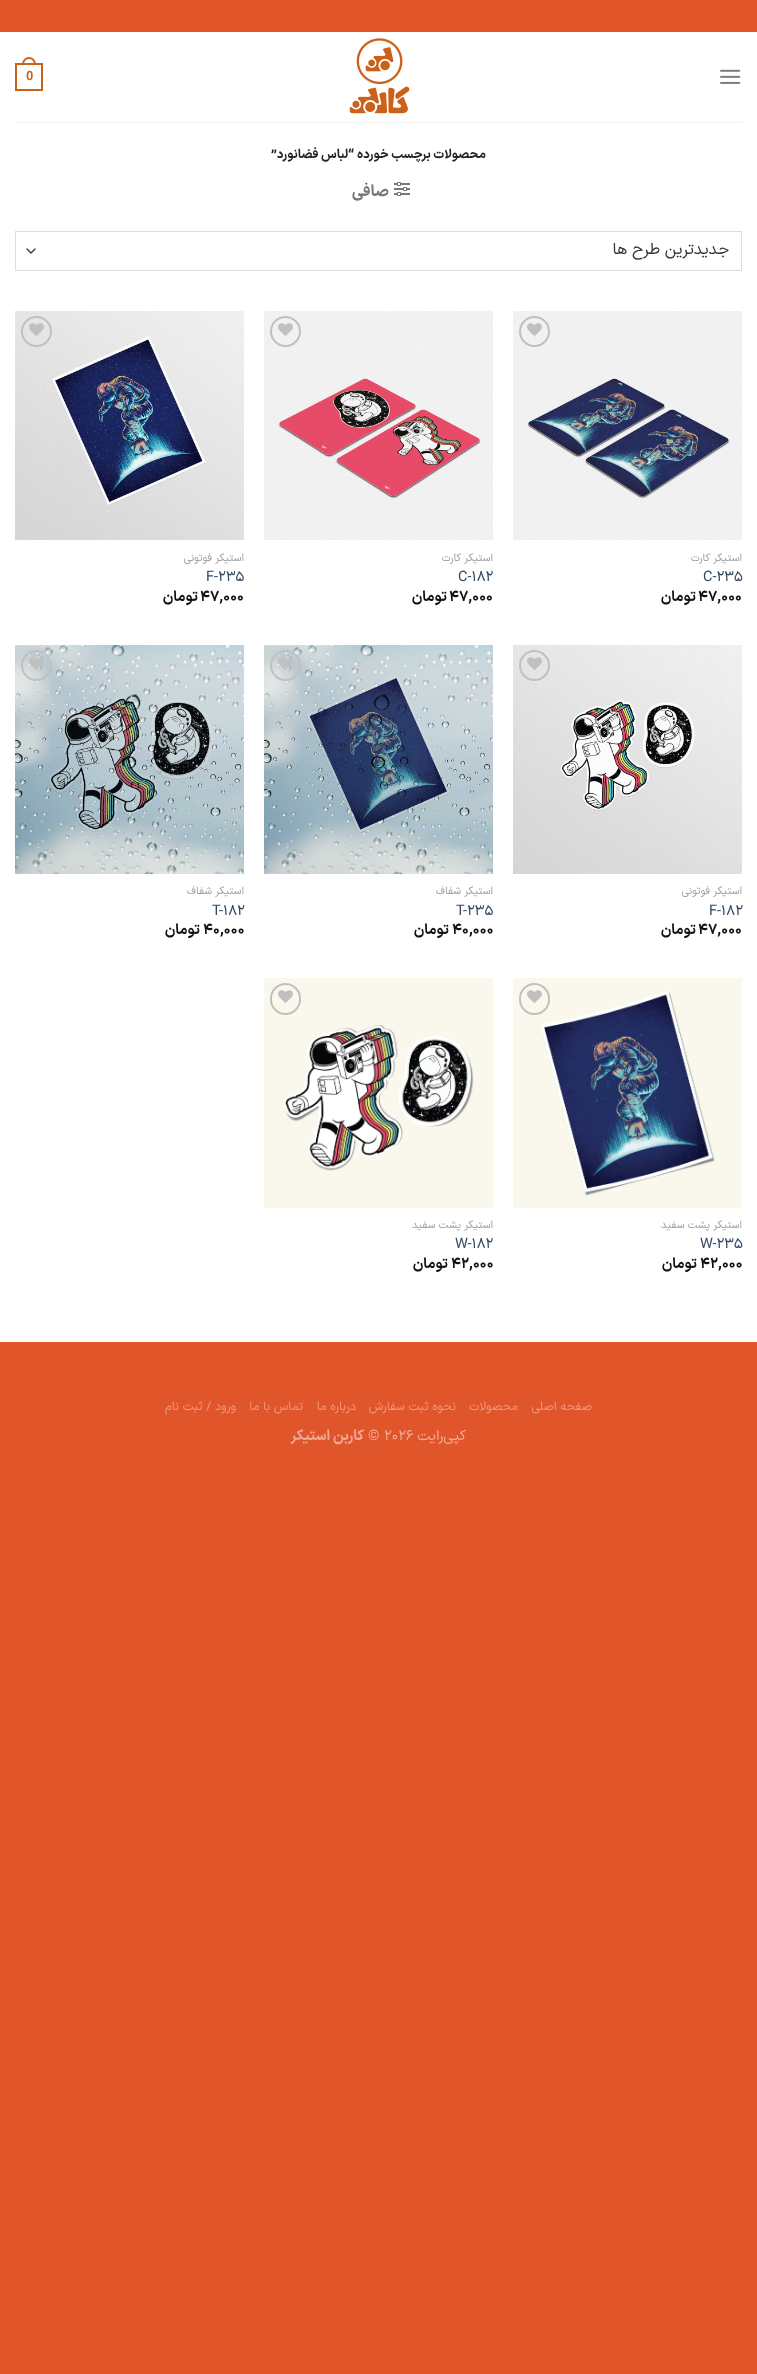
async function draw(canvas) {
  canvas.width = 757;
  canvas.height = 2374;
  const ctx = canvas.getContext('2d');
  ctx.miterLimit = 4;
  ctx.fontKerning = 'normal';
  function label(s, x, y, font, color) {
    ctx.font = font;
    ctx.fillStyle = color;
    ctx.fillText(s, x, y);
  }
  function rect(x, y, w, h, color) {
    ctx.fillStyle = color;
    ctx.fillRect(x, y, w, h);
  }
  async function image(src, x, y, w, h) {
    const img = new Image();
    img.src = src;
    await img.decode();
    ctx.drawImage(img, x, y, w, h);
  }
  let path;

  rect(0, 0, 757, 2374, '#e1552b');
  rect(0, 32, 757, 1310, '#fff');
  await image('assets/img1.png', 720, 69, 21, 15);
  await image('assets/img2.png', 349, 38, 61, 76);
  ctx.strokeStyle = '#cc611a';
  ctx.lineWidth = 2;
  ctx.strokeRect(16, 64, 26, 26);
  ctx.fillStyle = '#cc611a';
  path = new Path2D('M29 57C33.5 57 36 61 36 65H22C22 61 24.5 57 29 57ZM29 59C32.5 59 34 62 34 65H24C24 62 25.5 59 29 59Z');
  ctx.fill(path, 'evenodd');
  label('0', 26, 80, 'bold 12.75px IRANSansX', '#cc611a');
  rect(15, 122, 727, 1, '#f1f1f1');
  ctx.direction = 'rtl';
  label('محصولات برچسب خورده', 486, 158, 'bold 12.75px IRANSansX', '#222');
  label('“لباس فضانورد”', 354, 158, 'bold 12.75px IRANSansX', '#222');
  await image('assets/img3.png', 394, 182, 16, 14);
  label('صافی', 389, 196, 'bold 16px IRANSansX', '#777');
  path = new Path2D('M27 249L31 253L35 249');
  ctx.strokeStyle = '#333';
  ctx.lineWidth = 1.3;
  ctx.lineCap = 'round';
  ctx.lineJoin = 'round';
  ctx.stroke(path);
  ctx.strokeStyle = '#ddd';
  ctx.lineWidth = 1;
  ctx.lineJoin = 'miter';
  ctx.strokeRect(15.5, 231.5, 726, 39);
  label('جدیدترین طرح ها', 729, 254, '16px IRANSansX', '#333');
  await image('assets/img4.png', 513, 311, 229, 229);
  ctx.beginPath();
  ctx.arc(534.5, 331.5, 14.5, 0, 2 * Math.PI);
  ctx.strokeStyle = '#c0c0c0';
  ctx.lineWidth = 2;
  ctx.stroke();
  await image('assets/img5.png', 527, 323, 15, 13);
  label('استیکر کارت', 742, 561, '10.75px IRANSansX', '#a0a0a0');
  ctx.direction = 'ltr';
  label('C-235', 703, 581, '14.5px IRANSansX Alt', '#334862');
  label('47,000', 698, 601, 'bold 14.5px IRANSansX Alt', '#111');
  ctx.direction = 'rtl';
  label('تومان', 696, 601, 'bold 14.5px IRANSansX', '#111');
  await image('assets/img6.png', 264, 311, 229, 229);
  ctx.beginPath();
  ctx.arc(285.5, 331.5, 14.5, 0, 2 * Math.PI);
  ctx.stroke();
  await image('assets/img5.png', 278, 323, 15, 13);
  label('استیکر کارت', 493, 561, '10.75px IRANSansX', '#a0a0a0');
  ctx.direction = 'ltr';
  label('C-182', 458, 581, '14.5px IRANSansX Alt', '#334862');
  label('47,000', 449, 601, 'bold 14.5px IRANSansX Alt', '#111');
  ctx.direction = 'rtl';
  label('تومان', 447, 601, 'bold 14.5px IRANSansX', '#111');
  await image('assets/img7.png', 15, 311, 229, 229);
  ctx.beginPath();
  ctx.arc(36.5, 331.5, 14.5, 0, 2 * Math.PI);
  ctx.stroke();
  await image('assets/img8.png', 29, 323, 15, 13);
  label('استیکر فوتونی', 244, 561, '10.75px IRANSansX', '#a0a0a0');
  ctx.direction = 'ltr';
  label('F-235', 206, 581, '14.5px IRANSansX Alt', '#334862');
  label('47,000', 200, 601, 'bold 14.5px IRANSansX Alt', '#111');
  ctx.direction = 'rtl';
  label('تومان', 198, 601, 'bold 14.5px IRANSansX', '#111');
  await image('assets/img9.png', 513, 645, 229, 229);
  ctx.beginPath();
  ctx.arc(534.5, 665.5, 14.5, 0, 2 * Math.PI);
  ctx.stroke();
  await image('assets/img8.png', 527, 657, 15, 13);
  label('استیکر فوتونی', 742, 894, '10.75px IRANSansX', '#a0a0a0');
  ctx.direction = 'ltr';
  label('F-182', 709, 915, '14.5px IRANSansX Alt', '#334862');
  label('47,000', 698, 934, 'bold 14.5px IRANSansX Alt', '#111');
  ctx.direction = 'rtl';
  label('تومان', 696, 934, 'bold 14.5px IRANSansX', '#111');
  await image('assets/img10.png', 264, 645, 229, 229);
  ctx.beginPath();
  ctx.arc(285.5, 665.5, 14.5, 0, 2 * Math.PI);
  ctx.stroke();
  await image('assets/img11.png', 278, 657, 15, 13);
  label('استیکر شفاف', 493, 894, '10.75px IRANSansX', '#a0a0a0');
  ctx.direction = 'ltr';
  label('T-235', 456, 915, '14.5px IRANSansX Alt', '#334862');
  label('40,000', 452, 934, 'bold 14.5px IRANSansX Alt', '#111');
  ctx.direction = 'rtl';
  label('تومان', 449, 934, 'bold 14.5px IRANSansX', '#111');
  await image('assets/img12.png', 15, 645, 229, 229);
  ctx.beginPath();
  ctx.arc(36.5, 665.5, 14.5, 0, 2 * Math.PI);
  ctx.stroke();
  await image('assets/img11.png', 29, 657, 15, 13);
  label('استیکر شفاف', 244, 894, '10.75px IRANSansX', '#a0a0a0');
  ctx.direction = 'ltr';
  label('T-182', 212, 915, '14.5px IRANSansX Alt', '#334862');
  label('40,000', 203, 934, 'bold 14.5px IRANSansX Alt', '#111');
  ctx.direction = 'rtl';
  label('تومان', 200, 934, 'bold 14.5px IRANSansX', '#111');
  await image('assets/img13.png', 513, 978, 229, 230);
  ctx.beginPath();
  ctx.roundRect(520, 984, 29, 30, 14.5);
  ctx.stroke();
  await image('assets/img14.png', 527, 990, 15, 13);
  label('استیکر پشت سفید', 742, 1228, '10.75px IRANSansX', '#a0a0a0');
  ctx.direction = 'ltr';
  label('W-235', 700, 1248, '14.5px IRANSansX Alt', '#334862');
  label('42,000', 700, 1268, 'bold 14.5px IRANSansX Alt', '#111');
  ctx.direction = 'rtl';
  label('تومان', 697, 1268, 'bold 14.5px IRANSansX', '#111');
  await image('assets/img15.png', 264, 978, 229, 230);
  ctx.beginPath();
  ctx.roundRect(271, 984, 29, 30, 14.5);
  ctx.stroke();
  await image('assets/img14.png', 278, 990, 15, 13);
  label('استیکر پشت سفید', 493, 1228, '10.75px IRANSansX', '#a0a0a0');
  ctx.direction = 'ltr';
  label('W-182', 455, 1248, '14.5px IRANSansX Alt', '#334862');
  label('42,000', 451, 1268, 'bold 14.5px IRANSansX Alt', '#111');
  ctx.direction = 'rtl';
  label('تومان', 448, 1268, 'bold 14.5px IRANSansX', '#111');
  label('صفحه اصلی', 592, 1410, '12.25px IRANSansX', '#ed9980');
  label('محصولات', 518, 1410, '12.25px IRANSansX', '#ed9980');
  label('نحوه ثبت سفارش', 456, 1410, '12.25px IRANSansX', '#ed9980');
  label('درباره ما', 356, 1410, '12.25px IRANSansX', '#ed9980');
  label('تماس با ما', 303, 1410, '12.25px IRANSansX', '#ed9980');
  label('ورود / ثبت نام', 236, 1410, '12.25px IRANSansX', '#ed9980');
  label('کپی‌رایت', 466, 1440, '14.5px IRANSansX', '#f0aa95');
  ctx.direction = 'ltr';
  label('2026', 384, 1440, '14.5px IRANSansX Alt', '#f0aa95');
  label('©', 368, 1440, '14.5px IRANSansX', '#f0aa95');
  ctx.direction = 'rtl';
  label('کاربن استیکر', 364, 1440, 'bold 14.5px IRANSansX', '#f0aa95');
}

draw(document.querySelector('canvas'));
